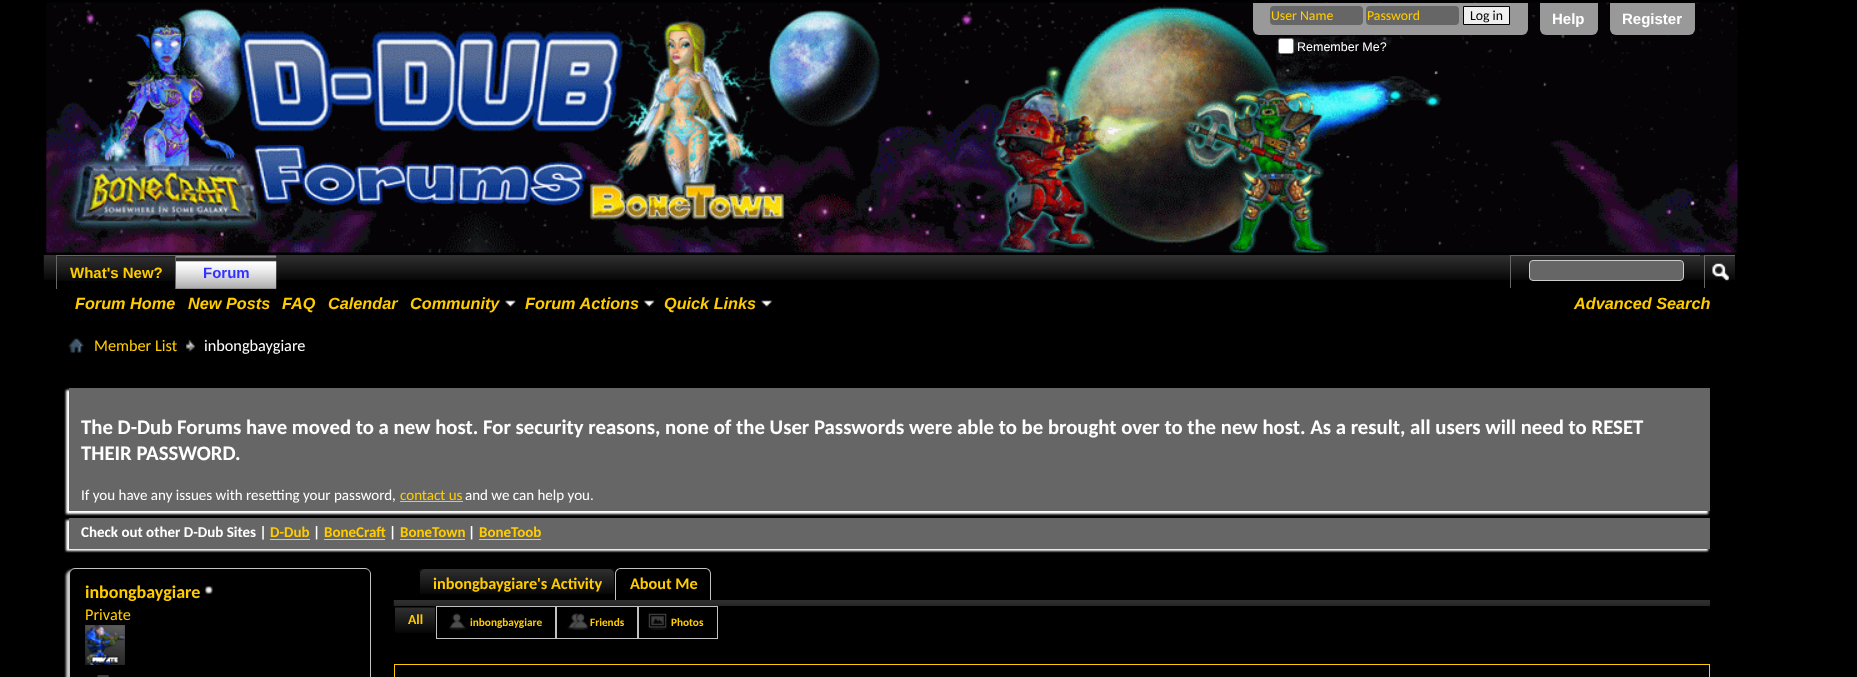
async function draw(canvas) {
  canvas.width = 1857;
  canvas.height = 677;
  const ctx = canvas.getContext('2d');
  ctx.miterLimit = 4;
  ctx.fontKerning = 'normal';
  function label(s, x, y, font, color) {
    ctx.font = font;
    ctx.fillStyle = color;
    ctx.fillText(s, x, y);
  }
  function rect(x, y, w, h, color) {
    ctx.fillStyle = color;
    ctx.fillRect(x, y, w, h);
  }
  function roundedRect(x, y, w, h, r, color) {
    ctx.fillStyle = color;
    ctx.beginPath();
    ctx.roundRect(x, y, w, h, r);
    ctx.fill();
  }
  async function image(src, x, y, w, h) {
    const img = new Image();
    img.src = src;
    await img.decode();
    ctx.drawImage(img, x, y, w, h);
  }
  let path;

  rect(0, 0, 1857, 677, '#000');
  await image('assets/img1.png', 46, 2, 1692, 251);
  ctx.fillStyle = '#999';
  ctx.beginPath();
  ctx.roundRect(1253, 3, 275, 32, [0, 0, 6, 6]);
  ctx.fill();
  roundedRect(1270, 6, 93, 19, 4, '#666');
  label('User Name', 1271, 20, '13.75px Carlito', '#fc0');
  roundedRect(1366, 6, 93, 19, 4, '#666');
  label('Password', 1367, 20, '13.75px Carlito', '#fc0');
  ctx.fillStyle = '#efefef';
  ctx.beginPath();
  ctx.rect(1463.5, 6.5, 46, 18);
  ctx.fill();
  ctx.strokeStyle = '#000';
  ctx.stroke();
  label('Log in', 1470, 20, '13.75px Carlito', '#000');
  ctx.fillStyle = '#fff';
  ctx.beginPath();
  ctx.roundRect(1278.5, 38.5, 15, 15, 2);
  ctx.fill();
  ctx.strokeStyle = '#767676';
  ctx.stroke();
  label('Remember Me?', 1297, 51, '12.5px Liberation Sans', '#fff');
  ctx.fillStyle = '#999';
  ctx.beginPath();
  ctx.roundRect(1540, 3, 58, 32, [0, 0, 6, 6]);
  ctx.fill();
  label('Help', 1552, 24, 'bold 15px Liberation Sans', '#fff');
  ctx.fillStyle = '#999';
  ctx.beginPath();
  ctx.roundRect(1610, 3, 85, 32, [0, 0, 6, 6]);
  ctx.fill();
  label('Register', 1622, 24, 'bold 15px Liberation Sans', '#fff');
  await image('assets/img2.png', 43, 255, 1692, 25);
  rect(57, 256, 118, 24, '#000');
  await image('assets/img3.png', 57, 256, 118, 25);
  rect(56, 255, 220, 1, '#666');
  rect(56, 255, 1, 34, '#666');
  label('What\'s New?', 70, 278, 'bold 15px Liberation Sans', '#fc0');
  rect(176, 256, 100, 33, '#333');
  await image('assets/img4.png', 176, 256, 101, 33);
  rect(175, 255, 1, 34, '#666');
  label('Forum', 203, 278, 'bold 15px Liberation Sans', '#33f');
  label('Forum Home', 75, 309, 'italic bold 16.25px Liberation Sans', '#fc0');
  label('New Posts', 188, 309, 'italic bold 16.25px Liberation Sans', '#fc0');
  label('FAQ', 282, 309, 'italic bold 16.25px Liberation Sans', '#fc0');
  label('Calendar', 328, 309, 'italic bold 16.25px Liberation Sans', '#fc0');
  label('Community', 410, 309, 'italic bold 16.25px Liberation Sans', '#fc0');
  await image('assets/img5.png', 505, 300, 11, 7);
  label('Forum Actions', 525, 309, 'italic bold 16.25px Liberation Sans', '#fc0');
  await image('assets/img6.png', 643, 300, 12, 7);
  label('Quick Links', 664, 309, 'italic bold 16.25px Liberation Sans', '#fc0');
  await image('assets/img7.png', 761, 300, 12, 7);
  rect(1510, 255, 190, 1, '#666');
  rect(1510, 255, 1, 33, '#666');
  ctx.beginPath();
  ctx.roundRect(1529.5, 260.5, 154, 20, 3.5);
  ctx.fill();
  ctx.strokeStyle = '#ccc';
  ctx.stroke();
  rect(1704, 255, 31, 1, '#666');
  rect(1704, 255, 1, 33, '#666');
  await image('assets/img8.png', 1712, 263, 17, 18);
  label('Advanced Search', 1574, 309, 'italic bold 16.25px Liberation Sans', '#fc0');
  await image('assets/img9.png', 68, 338, 16, 15);
  await image('assets/img10.png', 186, 339, 9, 13);
  label('Member List', 94, 351, '16.25px Carlito', '#fc0');
  label('inbongbaygiare', 204, 351, '16.25px Carlito', '#fff');
  ctx.filter = 'blur(1px)';
  ctx.beginPath();
  ctx.rect(66, 390, 1642, 124);
  ctx.fill();
  ctx.filter = 'none';
  rect(69, 388, 1641, 123, '#666');
  label('The D-Dub Forums have moved to a new host. For security reasons, none of the User Passwords were able to be brought over to the new host. As a result, all users will need to RESET', 81, 434, 'bold 20.78px Carlito', '#fff');
  label('THEIR PASSWORD.', 81, 460, 'bold 20.78px Carlito', '#fff');
  label('If you have any issues with resetting your password,', 81, 500, '15px Carlito', '#fff');
  label('contact us', 400, 500, '15px Carlito', '#fc0');
  rect(400, 501, 63, 1, '#fc0');
  label('and we can help you.', 465, 500, '15px Carlito', '#fff');
  ctx.filter = 'blur(1px)';
  ctx.beginPath();
  ctx.rect(66, 520, 1642, 31);
  ctx.fill();
  ctx.filter = 'none';
  rect(69, 518, 1641, 31, '#666');
  label('Check out other D-Dub Sites |', 81, 537, 'bold 15px Carlito', '#fff');
  label('D-Dub', 270, 537, 'bold 15px Carlito', '#fc0');
  rect(270, 539, 40, 1, '#fc0');
  label('|', 313, 537, 'bold 15px Carlito', '#fff');
  label('BoneCraft', 324, 537, 'bold 15px Carlito', '#fc0');
  rect(324, 539, 61, 1, '#fc0');
  label('|', 389, 537, 'bold 15px Carlito', '#fff');
  label('BoneTown', 400, 537, 'bold 15px Carlito', '#fc0');
  rect(400, 539, 65, 1, '#fc0');
  label('|', 468, 537, 'bold 15px Carlito', '#fff');
  label('BoneToob', 479, 537, 'bold 15px Carlito', '#fc0');
  rect(479, 539, 62, 1, '#fc0');
  ctx.fillStyle = '#c8c8c8';
  ctx.filter = 'blur(1px)';
  ctx.beginPath();
  ctx.roundRect(66, 570, 303, 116, 6);
  ctx.fill();
  ctx.filter = 'none';
  ctx.fillStyle = '#000';
  ctx.beginPath();
  ctx.roundRect(69.5, 568.5, 301, 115, 5.5);
  ctx.fill();
  ctx.strokeStyle = '#c1c1c1';
  ctx.stroke();
  label('inbongbaygiare', 85, 598, 'bold 18px Carlito', '#fc0');
  await image('assets/img11.png', 204, 586, 9, 8);
  label('Private', 85, 620, '16.25px Carlito', '#fc0');
  await image('assets/img12.png', 85, 625, 40, 40);
  await image('assets/img13.png', 97, 675, 12, 2);
  await image('assets/img14.png', 419, 568, 196, 26);
  ctx.fillStyle = '#000';
  path = new Path2D('M425 568H609C612 568 615 570 615 574V600H419V574C419 570 422 568 425 568ZM425 569H609C612 569 614 571 614 574V600H420V574C420 571 422 569 425 569Z');
  ctx.fill(path, 'evenodd');
  label('inbongbaygiare\'s Activity', 433, 589, 'bold 16.25px Carlito', '#fc0');
  ctx.fillStyle = '#c1c1c1';
  path = new Path2D('M621 568H705C708 568 711 570 711 574V600H615V574C615 570 618 568 621 568ZM621 569H705C708 569 710 571 710 574V600H616V574C616 571 618 569 621 569Z');
  ctx.fill(path, 'evenodd');
  label('About Me', 630, 589, 'bold 16.25px Carlito', '#fc0');
  await image('assets/img15.png', 393, 600, 1317, 6);
  await image('assets/img16.png', 395, 607, 40, 26);
  label('All', 408, 624, 'bold 13.75px Carlito', '#fc0');
  ctx.strokeRect(436.5, 606.5, 119, 32);
  await image('assets/img17.png', 449, 613, 18, 17);
  label('inbongbaygiare', 470, 626, 'bold 11.25px Carlito', '#fc0');
  ctx.strokeRect(556.5, 606.5, 81, 32);
  await image('assets/img18.png', 567, 613, 21, 17);
  label('Friends', 590, 626, 'bold 11.25px Carlito', '#fc0');
  ctx.strokeRect(638.5, 606.5, 79, 32);
  await image('assets/img19.png', 648, 613, 19, 17);
  label('Photos', 671, 626, 'bold 11.25px Carlito', '#fc0');
  ctx.strokeStyle = '#fc0';
  ctx.strokeRect(394.5, 664.5, 1315, 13);
}

draw(document.querySelector('canvas'));
